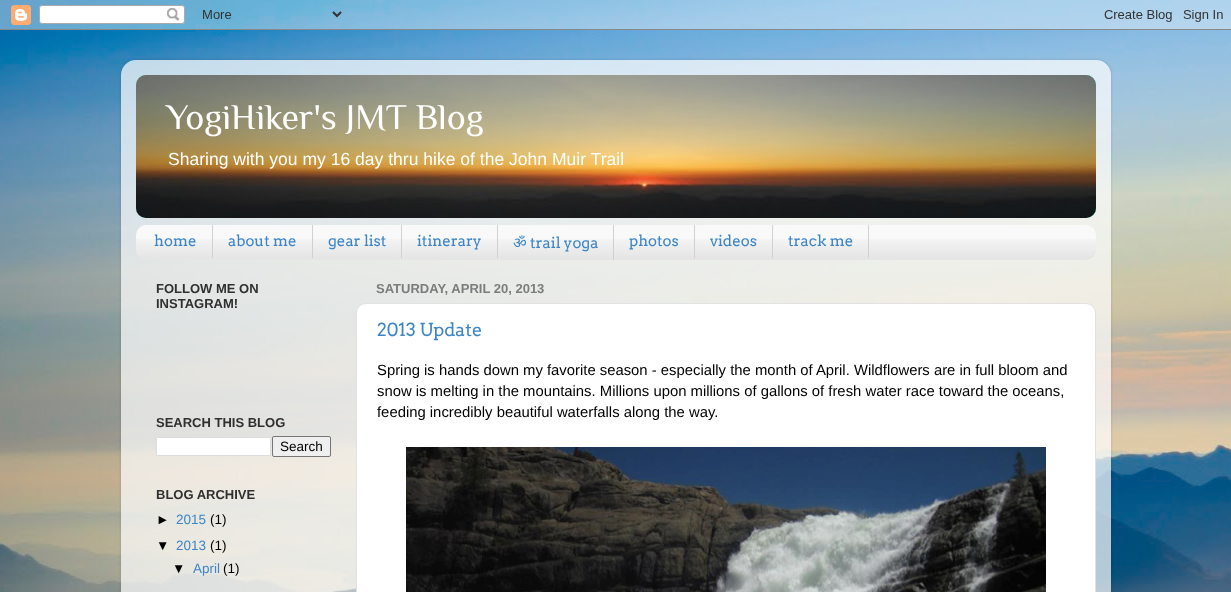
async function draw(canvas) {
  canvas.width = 1231;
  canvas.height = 592;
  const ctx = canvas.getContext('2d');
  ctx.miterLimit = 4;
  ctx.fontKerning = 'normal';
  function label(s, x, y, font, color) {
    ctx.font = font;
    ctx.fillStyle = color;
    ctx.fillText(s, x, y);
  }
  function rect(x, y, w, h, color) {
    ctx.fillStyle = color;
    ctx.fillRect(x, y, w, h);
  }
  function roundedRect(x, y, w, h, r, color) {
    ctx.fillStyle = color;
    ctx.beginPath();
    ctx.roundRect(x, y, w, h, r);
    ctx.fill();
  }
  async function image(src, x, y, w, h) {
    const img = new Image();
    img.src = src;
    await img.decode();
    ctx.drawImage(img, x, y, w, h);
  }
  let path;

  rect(0, 0, 1231, 592, '#fff');
  await image('assets/img1.png', 0, 0, 1231, 592);
  await image('assets/img2.png', 0, 0, 1231, 30);
  ctx.save();
  path = new Path2D('M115 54H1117V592H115ZM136 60H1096C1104.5 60 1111 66.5 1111 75V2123C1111 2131.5 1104.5 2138 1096 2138H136C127.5 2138 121 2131.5 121 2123V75C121 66.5 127.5 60 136 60Z');
  ctx.clip(path, 'evenodd');
  ctx.fillStyle = '#00000026';
  ctx.filter = 'blur(1.5px)';
  ctx.beginPath();
  ctx.roundRect(121, 60, 990, 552, 15);
  ctx.fill();
  ctx.filter = 'none';
  ctx.restore();
  await image('assets/img3.png', 121, 60, 990, 532);
  roundedRect(136, 75, 960, 143, 10, '#16c8b5');
  await image('assets/img4.png', 136, 75, 960, 10);
  await image('assets/img5.png', 136, 75, 960, 143);
  label('YogiHiker\'s JMT Blog', 166, 129, '36px Philosopher', '#fff');
  label('Sharing with you my 16 day thru hike of the John Muir Trail', 168, 165, '17.55px Liberation Sans', '#fff');
  roundedRect(136, 225, 960, 35, 10, '#f9f9f9');
  await image('assets/img6.png', 136, 239, 960, 21);
  rect(212, 225, 1, 33, '#d1d1d1');
  label('home', 154, 246, '15px Arvo', '#3d85c6');
  rect(312, 225, 1, 33, '#d1d1d1');
  label('about me', 228, 246, '15px Arvo', '#3d85c6');
  rect(401, 225, 1, 33, '#d1d1d1');
  label('gear list', 328, 246, '15px Arvo', '#3d85c6');
  rect(497, 225, 1, 33, '#d1d1d1');
  label('itinerary', 417, 246, '15px Arvo', '#3d85c6');
  rect(613, 225, 1, 35, '#d1d1d1');
  label('ॐ', 513, 248, '15px Noto Sans', '#3d85c6');
  label('trail yoga', 530, 248, '15px Arvo', '#3d85c6');
  rect(694, 225, 1, 33, '#d1d1d1');
  label('photos', 629, 246, '15px Arvo', '#3d85c6');
  rect(772, 225, 1, 33, '#d1d1d1');
  label('videos', 710, 246, '15px Arvo', '#3d85c6');
  rect(868, 225, 1, 33, '#d1d1d1');
  label('track me', 788, 246, '15px Arvo', '#3d85c6');
  label('FOLLOW ME ON', 156, 293, 'bold 13px Liberation Sans', '#303030');
  label('INSTAGRAM!', 156, 308, 'bold 13px Liberation Sans', '#303030');
  label('SEARCH THIS BLOG', 156, 427, 'bold 13px Liberation Sans', '#303030');
  ctx.fillStyle = '#fff';
  ctx.beginPath();
  ctx.rect(156.5, 437.5, 114, 18);
  ctx.fill();
  ctx.strokeStyle = '#ddd';
  ctx.stroke();
  ctx.fillStyle = '#efefef';
  ctx.beginPath();
  ctx.roundRect(272.5, 436.5, 58, 20, 1.5);
  ctx.fill();
  ctx.strokeStyle = '#767676';
  ctx.stroke();
  label('Search', 280, 451, '13.5px Liberation Sans', '#000');
  label('BLOG ARCHIVE', 156, 499, 'bold 13px Liberation Sans', '#303030');
  label('►', 156, 524, '13.5px Liberation Sans', '#000');
  label('2015', 176, 524, '13.5px Liberation Sans', '#3d85c6');
  label('(1)', 210, 524, '13.5px Liberation Sans', '#000');
  label('▼', 156, 550, '13.5px Liberation Sans', '#000');
  label('2013', 176, 550, '13.5px Liberation Sans', '#3d85c6');
  label('(1)', 210, 550, '13.5px Liberation Sans', '#000');
  label('▼', 172, 573, '13.5px Liberation Sans', '#000');
  label('April', 193, 573, '13.5px Liberation Sans', '#3d85c6');
  label('(1)', 223, 573, '13.5px Liberation Sans', '#000');
  label('SATURDAY, APRIL 20, 2013', 376, 293, 'bold 13px Liberation Sans', '#7c7c7c');
  ctx.fillStyle = '#fff';
  ctx.beginPath();
  ctx.roundRect(356.5, 303.5, 739, 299, 9.5);
  ctx.fill();
  ctx.strokeStyle = '#e2e2e2';
  ctx.stroke();
  label('2013 Update', 377, 336, '18px Arvo', '#3d85c6');
  label('Spring is hands down my favorite season - especially the month of April. Wildflowers are in full bloom and', 377, 375, '14.85px Liberation Sans', '#000');
  label('snow is melting in the mountains. Millions upon millions of gallons of fresh water race toward the oceans,', 377, 396, '14.85px Liberation Sans', '#000');
  label('feeding incredibly beautiful waterfalls along the way.', 377, 417, '14.85px Liberation Sans', '#000');
  await image('assets/img7.png', 406, 447, 640, 145);
}

draw(document.querySelector('canvas'));
